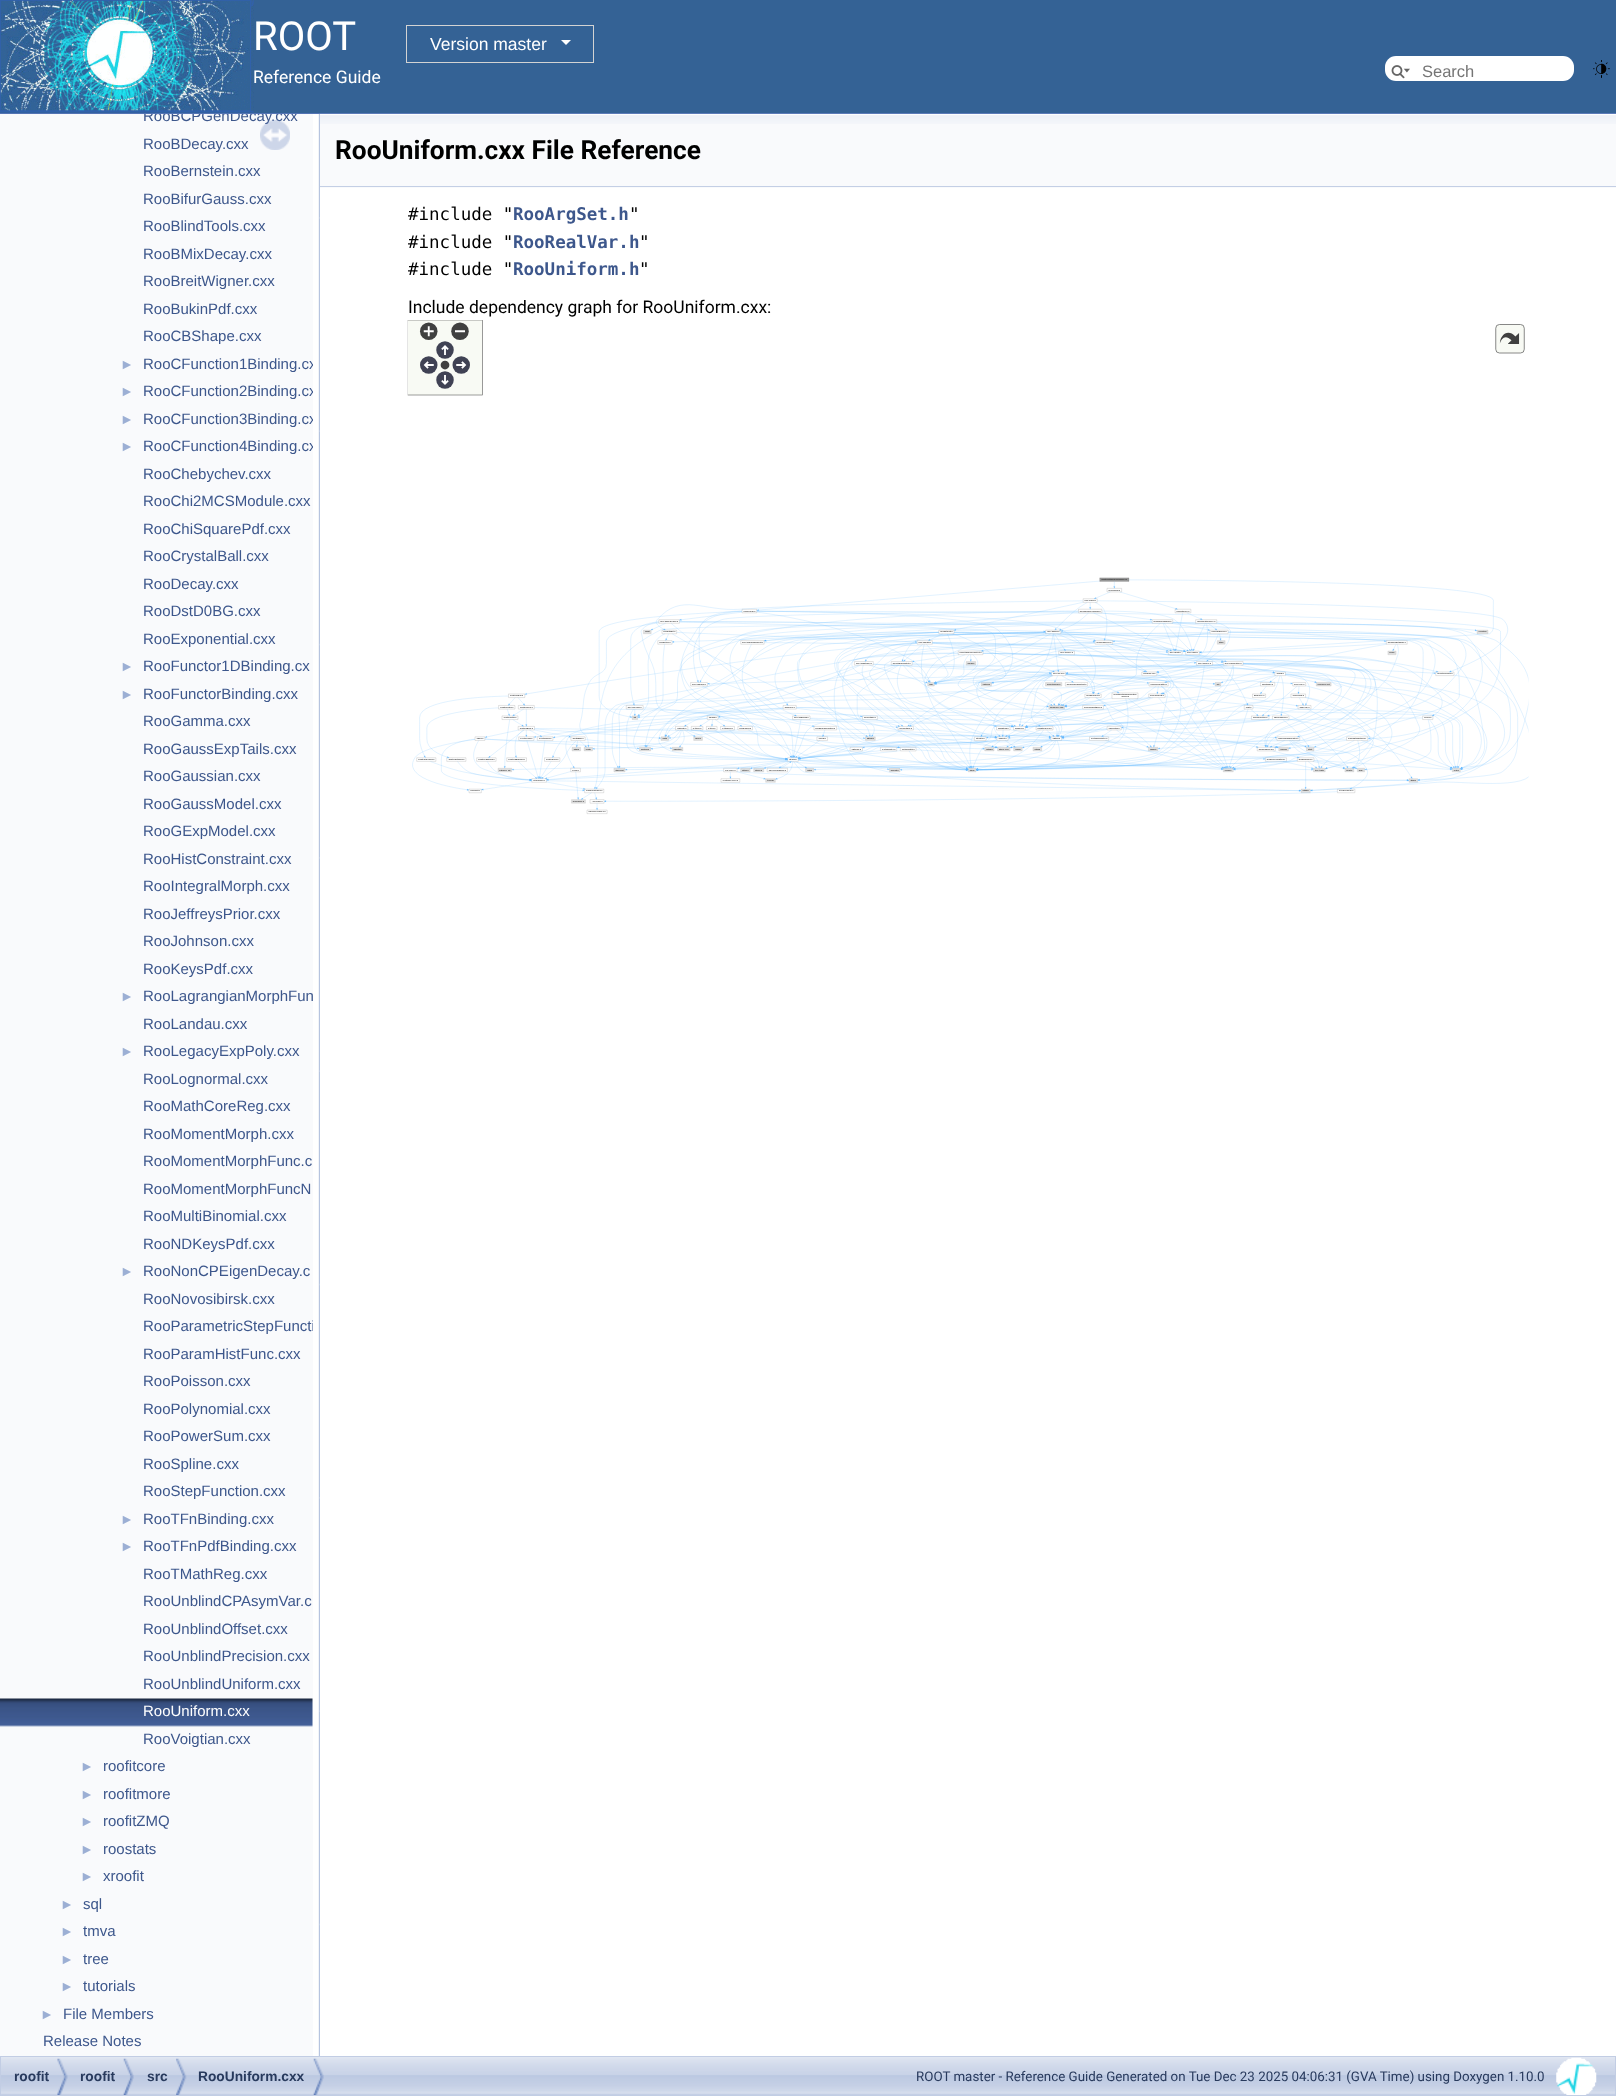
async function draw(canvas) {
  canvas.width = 1616;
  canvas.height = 2096;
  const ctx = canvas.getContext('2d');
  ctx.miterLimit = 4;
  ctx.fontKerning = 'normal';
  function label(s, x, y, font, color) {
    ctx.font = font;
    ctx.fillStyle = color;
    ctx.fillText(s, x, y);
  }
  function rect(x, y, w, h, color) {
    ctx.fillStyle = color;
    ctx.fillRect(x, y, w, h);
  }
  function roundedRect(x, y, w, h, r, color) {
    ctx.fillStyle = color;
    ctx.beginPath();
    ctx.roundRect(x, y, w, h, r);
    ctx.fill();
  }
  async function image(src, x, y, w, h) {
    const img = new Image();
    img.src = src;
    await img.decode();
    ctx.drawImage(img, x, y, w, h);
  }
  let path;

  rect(0, 0, 1616, 2096, '#fff');
  rect(0, 113, 1616, 1, '#5373b4');
  rect(0, 0, 1616, 113, '#346295');
  await image('assets/img1.png', 0, 0, 254, 113);
  label('ROOT', 253, 50, '40px Roboto', '#fff');
  ctx.strokeStyle = '#d3d3d3';
  ctx.strokeRect(406.5, 25.5, 187, 37);
  label('Version master', 430, 50, '17.5px Liberation Sans', '#fff');
  path = new Path2D('M561 40H571L566 45Z');
  ctx.fill(path);
  label('Reference Guide', 253, 83, '17.5px Roboto', '#fff');
  roundedRect(1385, 56, 189, 25, 11, '#fff');
  await image('assets/img2.png', 1391, 65, 19, 14);
  label('Search', 1422, 77, '16.5px Liberation Sans', '#757575');
  await image('assets/img3.png', 1593, 60, 17, 18);
  rect(0, 114, 313, 1942, '#f9fafc');
  ctx.save();
  ctx.beginPath();
  ctx.rect(0, 114, 313, 1942);
  ctx.clip();
  label('RooBCPGenDecay.cxx', 143, 121, '15px Liberation Sans', '#3d578c');
  ctx.restore();
  label('RooBDecay.cxx', 143, 149, '15px Liberation Sans', '#3d578c');
  label('RooBernstein.cxx', 143, 176, '15px Liberation Sans', '#3d578c');
  label('RooBifurGauss.cxx', 143, 204, '15px Liberation Sans', '#3d578c');
  label('RooBlindTools.cxx', 143, 231, '15px Liberation Sans', '#3d578c');
  label('RooBMixDecay.cxx', 143, 259, '15px Liberation Sans', '#3d578c');
  label('RooBreitWigner.cxx', 143, 286, '15px Liberation Sans', '#3d578c');
  label('RooBukinPdf.cxx', 143, 314, '15px Liberation Sans', '#3d578c');
  label('RooCBShape.cxx', 143, 341, '15px Liberation Sans', '#3d578c');
  label('►', 120, 369, '14px Liberation Sans', '#9cafd4');
  ctx.save();
  ctx.beginPath();
  ctx.rect(0, 114, 313, 1942);
  ctx.clip();
  label('RooCFunction1Binding.cx', 143, 369, '15px Liberation Sans', '#3d578c');
  ctx.restore();
  label('►', 120, 396, '14px Liberation Sans', '#9cafd4');
  ctx.save();
  ctx.beginPath();
  ctx.rect(0, 114, 313, 1942);
  ctx.clip();
  label('RooCFunction2Binding.cx', 143, 396, '15px Liberation Sans', '#3d578c');
  ctx.restore();
  label('►', 120, 424, '14px Liberation Sans', '#9cafd4');
  ctx.save();
  ctx.beginPath();
  ctx.rect(0, 114, 313, 1942);
  ctx.clip();
  label('RooCFunction3Binding.cx', 143, 424, '15px Liberation Sans', '#3d578c');
  ctx.restore();
  label('►', 120, 451, '14px Liberation Sans', '#9cafd4');
  ctx.save();
  ctx.beginPath();
  ctx.rect(0, 114, 313, 1942);
  ctx.clip();
  label('RooCFunction4Binding.cx', 143, 451, '15px Liberation Sans', '#3d578c');
  ctx.restore();
  label('RooChebychev.cxx', 143, 479, '15px Liberation Sans', '#3d578c');
  label('RooChi2MCSModule.cxx', 143, 506, '15px Liberation Sans', '#3d578c');
  label('RooChiSquarePdf.cxx', 143, 534, '15px Liberation Sans', '#3d578c');
  label('RooCrystalBall.cxx', 143, 561, '15px Liberation Sans', '#3d578c');
  label('RooDecay.cxx', 143, 589, '15px Liberation Sans', '#3d578c');
  label('RooDstD0BG.cxx', 143, 616, '15px Liberation Sans', '#3d578c');
  label('RooExponential.cxx', 143, 644, '15px Liberation Sans', '#3d578c');
  label('►', 120, 671, '14px Liberation Sans', '#9cafd4');
  label('RooFunctor1DBinding.cx', 143, 671, '15px Liberation Sans', '#3d578c');
  label('►', 120, 699, '14px Liberation Sans', '#9cafd4');
  label('RooFunctorBinding.cxx', 143, 699, '15px Liberation Sans', '#3d578c');
  label('RooGamma.cxx', 143, 726, '15px Liberation Sans', '#3d578c');
  label('RooGaussExpTails.cxx', 143, 754, '15px Liberation Sans', '#3d578c');
  label('RooGaussian.cxx', 143, 781, '15px Liberation Sans', '#3d578c');
  label('RooGaussModel.cxx', 143, 809, '15px Liberation Sans', '#3d578c');
  label('RooGExpModel.cxx', 143, 836, '15px Liberation Sans', '#3d578c');
  label('RooHistConstraint.cxx', 143, 864, '15px Liberation Sans', '#3d578c');
  label('RooIntegralMorph.cxx', 143, 891, '15px Liberation Sans', '#3d578c');
  label('RooJeffreysPrior.cxx', 143, 919, '15px Liberation Sans', '#3d578c');
  label('RooJohnson.cxx', 143, 946, '15px Liberation Sans', '#3d578c');
  label('RooKeysPdf.cxx', 143, 974, '15px Liberation Sans', '#3d578c');
  label('►', 120, 1001, '14px Liberation Sans', '#9cafd4');
  label('RooLagrangianMorphFun', 143, 1001, '15px Liberation Sans', '#3d578c');
  label('RooLandau.cxx', 143, 1029, '15px Liberation Sans', '#3d578c');
  label('►', 120, 1056, '14px Liberation Sans', '#9cafd4');
  label('RooLegacyExpPoly.cxx', 143, 1056, '15px Liberation Sans', '#3d578c');
  label('RooLognormal.cxx', 143, 1084, '15px Liberation Sans', '#3d578c');
  label('RooMathCoreReg.cxx', 143, 1111, '15px Liberation Sans', '#3d578c');
  label('RooMomentMorph.cxx', 143, 1139, '15px Liberation Sans', '#3d578c');
  label('RooMomentMorphFunc.c', 143, 1166, '15px Liberation Sans', '#3d578c');
  label('RooMomentMorphFuncN', 143, 1194, '15px Liberation Sans', '#3d578c');
  label('RooMultiBinomial.cxx', 143, 1221, '15px Liberation Sans', '#3d578c');
  label('RooNDKeysPdf.cxx', 143, 1249, '15px Liberation Sans', '#3d578c');
  label('►', 120, 1276, '14px Liberation Sans', '#9cafd4');
  label('RooNonCPEigenDecay.c', 143, 1276, '15px Liberation Sans', '#3d578c');
  label('RooNovosibirsk.cxx', 143, 1304, '15px Liberation Sans', '#3d578c');
  ctx.save();
  ctx.beginPath();
  ctx.rect(0, 114, 313, 1942);
  ctx.clip();
  label('RooParametricStepFuncti', 143, 1331, '15px Liberation Sans', '#3d578c');
  ctx.restore();
  label('RooParamHistFunc.cxx', 143, 1359, '15px Liberation Sans', '#3d578c');
  label('RooPoisson.cxx', 143, 1386, '15px Liberation Sans', '#3d578c');
  label('RooPolynomial.cxx', 143, 1414, '15px Liberation Sans', '#3d578c');
  label('RooPowerSum.cxx', 143, 1441, '15px Liberation Sans', '#3d578c');
  label('RooSpline.cxx', 143, 1469, '15px Liberation Sans', '#3d578c');
  label('RooStepFunction.cxx', 143, 1496, '15px Liberation Sans', '#3d578c');
  label('►', 120, 1524, '14px Liberation Sans', '#9cafd4');
  label('RooTFnBinding.cxx', 143, 1524, '15px Liberation Sans', '#3d578c');
  label('►', 120, 1551, '14px Liberation Sans', '#9cafd4');
  label('RooTFnPdfBinding.cxx', 143, 1551, '15px Liberation Sans', '#3d578c');
  label('RooTMathReg.cxx', 143, 1579, '15px Liberation Sans', '#3d578c');
  label('RooUnblindCPAsymVar.c', 143, 1606, '15px Liberation Sans', '#3d578c');
  label('RooUnblindOffset.cxx', 143, 1634, '15px Liberation Sans', '#3d578c');
  label('RooUnblindPrecision.cxx', 143, 1661, '15px Liberation Sans', '#3d578c');
  label('RooUnblindUniform.cxx', 143, 1689, '15px Liberation Sans', '#3d578c');
  await image('assets/img4.png', 0, 1698, 313, 29);
  label('RooUniform.cxx', 143, 1716, '15px Liberation Sans', '#fff');
  label('RooVoigtian.cxx', 143, 1744, '15px Liberation Sans', '#3d578c');
  label('►', 80, 1771, '14px Liberation Sans', '#9cafd4');
  label('roofitcore', 103, 1771, '15px Liberation Sans', '#3d578c');
  label('►', 80, 1799, '14px Liberation Sans', '#9cafd4');
  label('roofitmore', 103, 1799, '15px Liberation Sans', '#3d578c');
  label('►', 80, 1826, '14px Liberation Sans', '#9cafd4');
  label('roofitZMQ', 103, 1826, '15px Liberation Sans', '#3d578c');
  label('►', 80, 1854, '14px Liberation Sans', '#9cafd4');
  label('roostats', 103, 1854, '15px Liberation Sans', '#3d578c');
  label('►', 80, 1881, '14px Liberation Sans', '#9cafd4');
  label('xroofit', 103, 1881, '15px Liberation Sans', '#3d578c');
  label('►', 60, 1909, '14px Liberation Sans', '#9cafd4');
  label('sql', 83, 1909, '15px Liberation Sans', '#3d578c');
  label('►', 60, 1936, '14px Liberation Sans', '#9cafd4');
  label('tmva', 83, 1936, '15px Liberation Sans', '#3d578c');
  label('►', 60, 1964, '14px Liberation Sans', '#9cafd4');
  label('tree', 83, 1964, '15px Liberation Sans', '#3d578c');
  label('►', 60, 1991, '14px Liberation Sans', '#9cafd4');
  label('tutorials', 83, 1991, '15px Liberation Sans', '#3d578c');
  label('►', 40, 2019, '14px Liberation Sans', '#9cafd4');
  label('File Members', 63, 2019, '15px Liberation Sans', '#3d578c');
  label('Release Notes', 43, 2046, '15px Liberation Sans', '#3d578c');
  await image('assets/img5.png', 260, 120, 30, 30);
  await image('assets/img6.png', 318, 113, 2, 1943);
  rect(320, 124, 1296, 64, '#f9fafc');
  await image('assets/img7.png', 320, 113, 1296, 11);
  rect(320, 186, 1296, 1, '#c4cfe5');
  label('RooUniform.cxx File Reference', 335, 159, 'bold 26.25px Roboto', '#000');
  label('#include "', 408, 220, '17.5px DejaVu Sans Mono', '#000');
  label('RooArgSet.h', 513, 220, 'bold 17.5px DejaVu Sans Mono', '#3d578c');
  label('"', 629, 220, '17.5px DejaVu Sans Mono', '#000');
  label('#include "', 408, 248, '17.5px DejaVu Sans Mono', '#000');
  label('RooRealVar.h', 513, 248, 'bold 17.5px DejaVu Sans Mono', '#3d578c');
  label('"', 639, 248, '17.5px DejaVu Sans Mono', '#000');
  label('#include "', 408, 275, '17.5px DejaVu Sans Mono', '#000');
  label('RooUniform.h', 513, 275, 'bold 17.5px DejaVu Sans Mono', '#3d578c');
  label('"', 639, 275, '17.5px DejaVu Sans Mono', '#000');
  label('Include dependency graph for RooUniform.cxx:', 408, 313, '17.5px Roboto', '#000');
  await image('assets/img8.png', 407, 320, 1122, 495);
  await image('assets/img9.png', 1, 2057, 1614, 38);
  ctx.strokeStyle = '#c2cde4';
  ctx.strokeRect(0.5, 2056.5, 1615, 39);
  await image('assets/img10.png', 57, 2058, 11, 37);
  label('roofit', 14, 2081, 'bold 13.75px Liberation Sans', '#283a5d');
  await image('assets/img11.png', 123, 2058, 11, 37);
  label('roofit', 80, 2081, 'bold 13.75px Liberation Sans', '#283a5d');
  await image('assets/img12.png', 176, 2058, 11, 37);
  label('src', 147, 2081, 'bold 13.75px Liberation Sans', '#283a5d');
  await image('assets/img13.png', 313, 2058, 11, 37);
  label('RooUniform.cxx', 198, 2081, 'bold 13.75px Liberation Sans', '#283a5d');
  label('ROOT master - Reference Guide Generated on Tue Dec 23 2025 04:06:31 (GVA Time) using Doxygen 1.10.0', 916, 2081, '13.35px Roboto', '#283a5d');
  await image('assets/img14.png', 1556, 2057, 41, 38);
}

draw(document.querySelector('canvas'));
